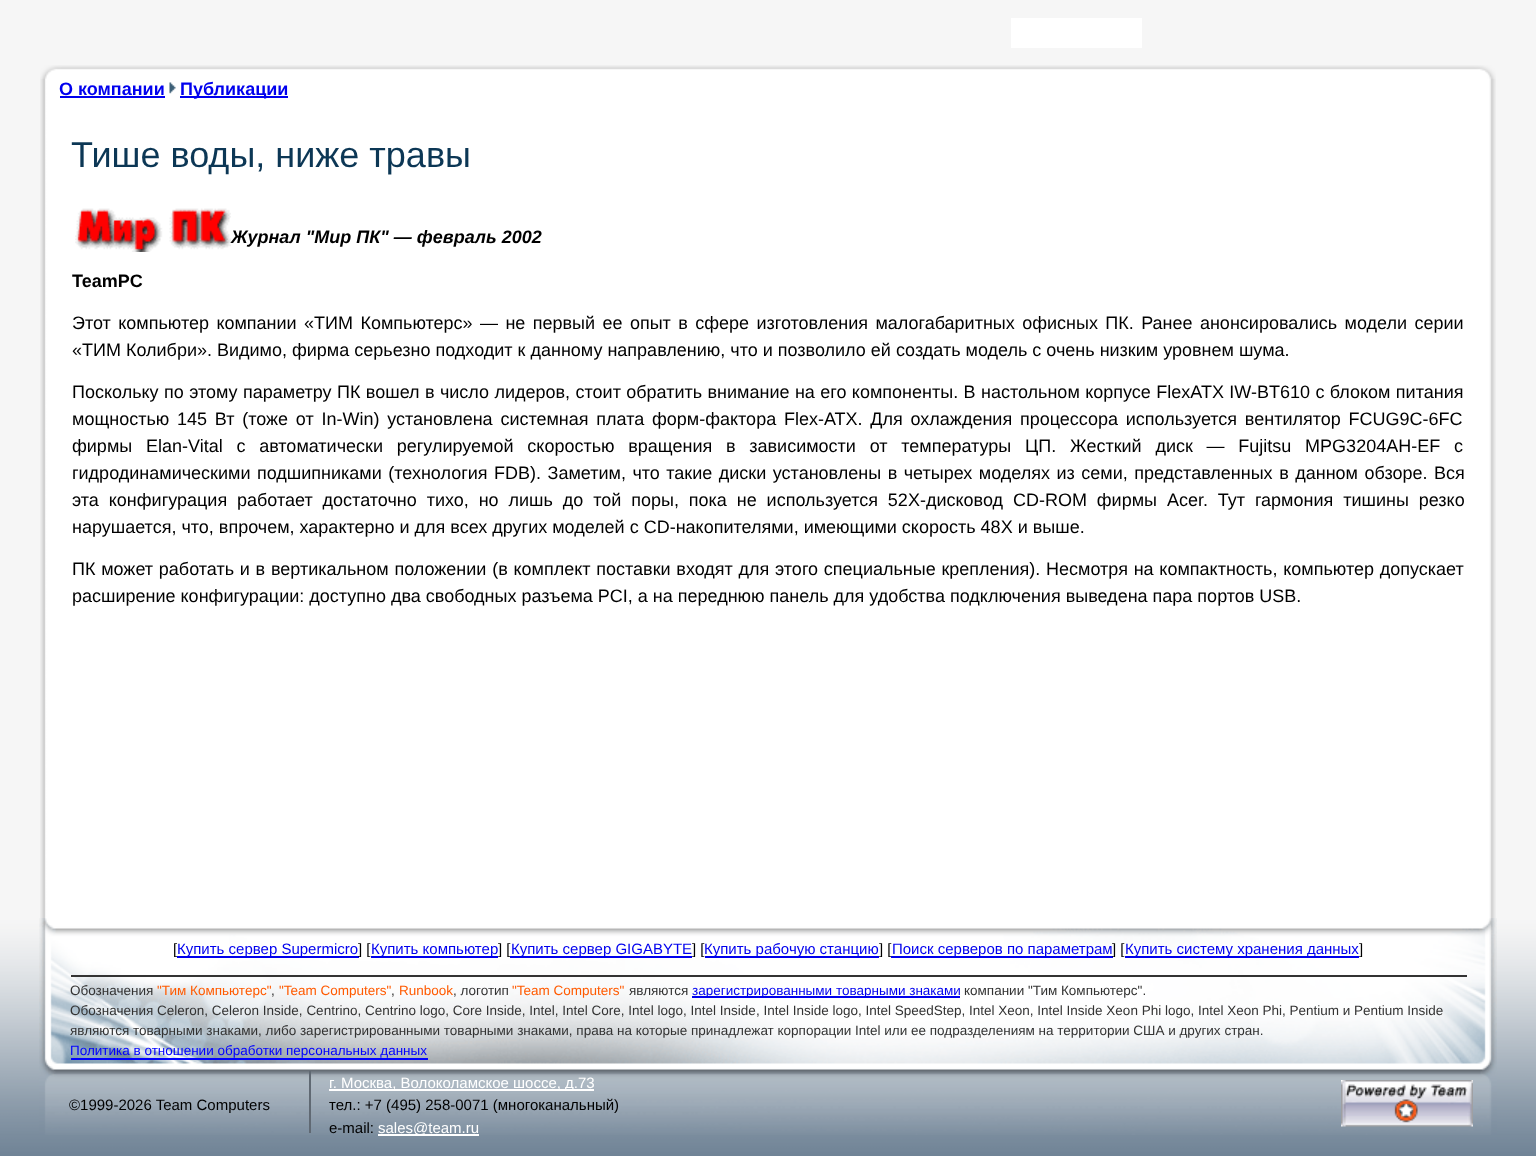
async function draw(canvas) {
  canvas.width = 1536;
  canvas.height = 1156;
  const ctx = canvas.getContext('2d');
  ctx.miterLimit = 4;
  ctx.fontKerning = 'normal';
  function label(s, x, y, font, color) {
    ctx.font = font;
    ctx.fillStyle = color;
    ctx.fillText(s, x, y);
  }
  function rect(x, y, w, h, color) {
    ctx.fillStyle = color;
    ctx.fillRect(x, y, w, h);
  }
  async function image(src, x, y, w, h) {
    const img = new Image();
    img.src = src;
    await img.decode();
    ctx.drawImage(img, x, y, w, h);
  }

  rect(0, 0, 1536, 1156, '#f6f6f6');
  await image('assets/img1.png', 40, 79, 1456, 839);
  rect(1011, 18, 131, 30, '#fff');
  await image('assets/img2.png', 40, 65, 1456, 14);
  label('О компании', 59, 95, 'bold 18px Liberation Sans', '#00e');
  rect(60, 96, 105, 2, '#00e');
  await image('assets/img3.png', 169, 82, 7, 12);
  rect(180, 96, 108, 2, '#00e');
  label('Публикации', 180, 95, 'bold 18px Liberation Sans', '#00e');
  label('Тише воды, ниже травы', 71, 167, '36px Liberation Sans', '#0c3755');
  await image('assets/img4.png', 75, 208, 156, 44);
  label('Журнал "Мир ПК" — февраль 2002', 231, 243, 'italic bold 18px Liberation Sans', '#000');
  label('TeamPC', 72, 287, 'bold 18px Liberation Sans', '#000');
  ctx.wordSpacing = '2.4px';
  label('Этот компьютер компании «ТИМ Компьютерс» — не первый ее опыт в сфере изготовления малогабаритных офисных ПК. Ранее анонсировались модели серии', 72, 329, '18px Liberation Sans', '#000');
  ctx.wordSpacing = '0px';
  label('«ТИМ Колибри». Видимо, фирма серьезно подходит к данному направлению, что и позволило ей создать модель c очень низким уровнем шума.', 72, 356, '18px Liberation Sans', '#000');
  ctx.wordSpacing = '0.4px';
  label('Поскольку по этому параметру ПК вошел в число лидеров, стоит обратить внимание на его компоненты. В настольном корпусе FlexATX IW-BT610 с блоком питания', 72, 398, '18px Liberation Sans', '#000');
  ctx.wordSpacing = '2.75px';
  label('мощностью 145 Вт (тоже от In-Win) установлена системная плата форм-фактора Flex-ATX. Для охлаждения процессора используется вентилятор FCUG9C-6FC', 72, 425, '18px Liberation Sans', '#000');
  ctx.wordSpacing = '8.75px';
  label('фирмы Elan-Vital с автоматически регулируемой скоростью вращения в зависимости от температуры ЦП. Жесткий диск — Fujitsu MPG3204AH-EF с', 72, 452, '18px Liberation Sans', '#000');
  ctx.wordSpacing = '1.5px';
  label('гидродинамическими подшипниками (технология FDB). Заметим, что такие диски установлены в четырех моделях из семи, представленных в данном обзоре. Вся', 72, 479, '18px Liberation Sans', '#000');
  ctx.wordSpacing = '4.9px';
  label('эта конфигурация работает достаточно тихо, но лишь до той поры, пока не используется 52X-дисковод CD-ROM фирмы Acer. Тут гармония тишины резко', 72, 506, '18px Liberation Sans', '#000');
  ctx.wordSpacing = '0px';
  label('нарушается, что, впрочем, характерно и для всех других моделей с CD-накопителями, имеющими скорость 48X и выше.', 72, 533, '18px Liberation Sans', '#000');
  ctx.wordSpacing = '0.75px';
  label('ПК может работать и в вертикальном положении (в комплект поставки входят для этого специальные крепления). Несмотря на компактность, компьютер допускает', 72, 575, '18px Liberation Sans', '#000');
  ctx.wordSpacing = '0px';
  label('расширение конфигурации: доступно два свободных разъема PCI, а на переднюю панель для удобства подключения выведена пара портов USB.', 72, 602, '18px Liberation Sans', '#000');
  await image('assets/img5.png', 0, 918, 1536, 238);
  await image('assets/img6.png', 39, 918, 1458, 217);
  label('[', 173, 954, '15px Liberation Sans', '#000');
  rect(177, 956, 182, 2, '#00e');
  label('Купить сервер Supermicro', 177, 954, '15px Liberation Sans', '#00e');
  label('] [', 358, 954, '15px Liberation Sans', '#000');
  rect(371, 956, 127, 2, '#00e');
  label('Купить компьютер', 371, 954, '15px Liberation Sans', '#00e');
  label('] [', 498, 954, '15px Liberation Sans', '#000');
  rect(510, 956, 182, 2, '#00e');
  label('Купить сервер GIGABYTE', 511, 954, '15px Liberation Sans', '#00e');
  label('] [', 692, 954, '15px Liberation Sans', '#000');
  rect(705, 956, 174, 2, '#00e');
  label('Купить рабочую станцию', 704, 954, '15px Liberation Sans', '#00e');
  label('] [', 879, 954, '15px Liberation Sans', '#000');
  rect(891, 956, 222, 2, '#00e');
  label('Поиск серверов по параметрам', 892, 954, '15px Liberation Sans', '#00e');
  label('] [', 1112, 954, '15px Liberation Sans', '#000');
  rect(1125, 956, 234, 2, '#00e');
  label('Купить систему хранения данных', 1125, 954, '15px Liberation Sans', '#00e');
  label(']', 1359, 954, '15px Liberation Sans', '#000');
  rect(71, 975, 1396, 2, '#333');
  label('Обозначения', 70, 995, '13.5px Liberation Sans', '#333');
  label('"Тим Компьютерс"', 157, 995, '13.5px Liberation Sans', '#ff5a00');
  label(',', 271, 995, '13.5px Liberation Sans', '#333');
  label('"Team Computers"', 279, 995, '13.5px Liberation Sans', '#ff5a00');
  label(',', 391, 995, '13.5px Liberation Sans', '#333');
  label('Runbook', 399, 995, '13.5px Liberation Sans', '#ff5a00');
  label(', логотип', 453, 995, '13.5px Liberation Sans', '#333');
  label('"Team Computers"', 512, 995, '13.5px Liberation Sans', '#ff5a00');
  label('являются', 629, 995, '13.5px Liberation Sans', '#333');
  rect(692, 996, 268, 2, '#00e');
  label('зарегистрированными товарными знаками', 692, 995, '13.5px Liberation Sans', '#00e');
  label('компании "Тим Компьютерс".', 964, 995, '13.5px Liberation Sans', '#333');
  label('Обозначения Celeron, Celeron Inside, Centrino, Centrino logo, Core Inside, Intel, Intel Core, Intel logo, Intel Inside, Intel Inside logo, Intel SpeedStep, Intel Xeon, Intel Inside Xeon Phi logo, Intel Xeon Phi, Pentium и Pentium Inside', 70, 1015, '13.5px Liberation Sans', '#333');
  label('являются товарными знаками, либо зарегистрированными товарными знаками, права на которые принадлежат корпорации Intel или ее подразделениям на территории США и других стран.', 70, 1035, '13.5px Liberation Sans', '#333');
  label('Политика в отношении обработки персональных данных', 70, 1055, '13.5px Liberation Sans', '#00f');
  rect(71, 1058, 357, 2, '#00f');
  label('©1999-2026 Team Computers', 69, 1110, '15px Liberation Sans', '#000');
  rect(309, 1071, 2, 62, '#606973');
  rect(329, 1089, 265, 2, '#fff');
  label('г. Москва, Волоколамское шоссе, д.73', 329, 1088, '15px Liberation Sans', '#fff');
  label('тел.: +7 (495) 258-0071 (многоканальный)', 329, 1110, '15px Liberation Sans', '#000');
  label('e-mail:', 329, 1133, '15px Liberation Sans', '#000');
  rect(378, 1134, 101, 2, '#fff');
  label('sales@team.ru', 378, 1133, '15px Liberation Sans', '#fff');
  await image('assets/img7.png', 1341, 1080, 132, 47);
}

draw(document.querySelector('canvas'));
